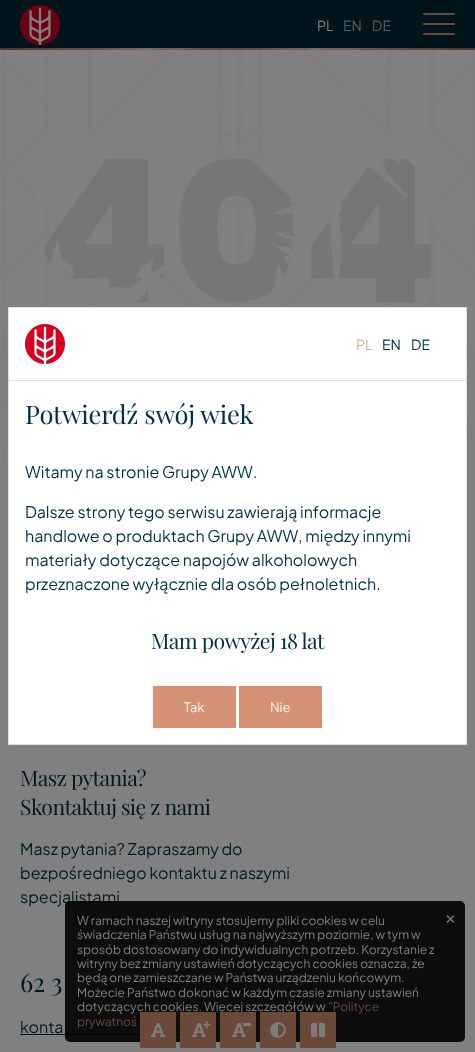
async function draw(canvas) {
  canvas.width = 475;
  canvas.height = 1052;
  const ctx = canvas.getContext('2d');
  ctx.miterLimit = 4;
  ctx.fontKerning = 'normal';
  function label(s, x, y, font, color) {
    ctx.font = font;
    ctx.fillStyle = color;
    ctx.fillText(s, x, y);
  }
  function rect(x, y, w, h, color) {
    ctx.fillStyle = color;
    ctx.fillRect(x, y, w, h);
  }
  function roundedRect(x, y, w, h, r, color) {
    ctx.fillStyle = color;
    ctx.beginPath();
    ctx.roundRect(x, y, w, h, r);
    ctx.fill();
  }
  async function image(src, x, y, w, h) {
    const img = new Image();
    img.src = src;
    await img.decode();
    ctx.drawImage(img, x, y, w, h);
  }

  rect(0, 0, 475, 1052, '#808080');
  rect(0, 0, 475, 50, '#00141c');
  await image('assets/img1.png', 0, 48, 475, 2);
  await image('assets/img2.png', 20, 5, 40, 40);
  label('PL', 317, 31, '14px Plus Jakarta Sans', '#808080');
  label('EN', 343, 31, '14px Plus Jakarta Sans', '#5a5f61');
  label('DE', 372, 31, '14px Plus Jakarta Sans', '#5a5f61');
  roundedRect(423, 13, 32, 2, 1, '#6a493a');
  roundedRect(423, 23, 32, 2, 1, '#6a493a');
  roundedRect(423, 33, 32, 2, 1, '#6a493a');
  await image('assets/img3.png', 0, 50, 475, 417);
  await image('assets/img4.png', 44, 158, 387, 144);
  ctx.fillStyle = '#fff';
  ctx.beginPath();
  ctx.rect(8.5, 307.5, 458, 437);
  ctx.fill();
  ctx.strokeStyle = '#e8e0d8';
  ctx.stroke();
  rect(9, 380, 457, 1, '#dee2e6');
  await image('assets/img5.png', 25, 324, 40, 40);
  label('PL', 356, 350, '14px Plus Jakarta Sans', '#d9ad99');
  label('EN', 382, 350, '14px Plus Jakarta Sans', '#003146');
  label('DE', 411, 350, '14px Plus Jakarta Sans', '#003146');
  ctx.letterSpacing = '-0.25px';
  label('Potwierdź swój wiek', 25, 424, '25.5px Playfair Display', '#003146');
  ctx.letterSpacing = '0px';
  label('Witamy na stronie Grupy AWW.', 25, 478, '16px Plus Jakarta Sans', '#003146');
  label('Dalsze strony tego serwisu zawierają informacje', 25, 518, '16px Plus Jakarta Sans', '#003146');
  label('handlowe o produktach Grupy AWW, między innymi', 25, 542, '16px Plus Jakarta Sans', '#003146');
  label('materiały dotyczące napojów alkoholowych', 25, 566, '16px Plus Jakarta Sans', '#003146');
  label('przeznaczone wyłącznie dla osób pełnoletnich.', 25, 590, '16px Plus Jakarta Sans', '#003146');
  ctx.letterSpacing = '-0.6px';
  label('Mam powyżej 18 lat', 151, 649, '21.25px Playfair Display', '#003146');
  rect(153, 686, 83, 42, '#d49173');
  ctx.letterSpacing = '0px';
  label('Tak', 184, 712, '13px Plus Jakarta Sans', '#faf7f5');
  rect(239, 686, 83, 42, '#d49173');
  label('Nie', 270, 712, '13px Plus Jakarta Sans', '#faf7f5');
  ctx.letterSpacing = '-0.6px';
  label('Masz pytania?', 20, 786, '21.25px Playfair Display', '#001923');
  label('Skontaktuj się z nami', 20, 815, '21.25px Playfair Display', '#001923');
  ctx.letterSpacing = '0px';
  label('Masz pytania? Zapraszamy do', 20, 855, '16px Plus Jakarta Sans', '#001923');
  label('bezpośredniego kontaktu z naszymi', 20, 879, '16px Plus Jakarta Sans', '#001923');
  label('specjalistami', 20, 903, '16px Plus Jakarta Sans', '#001923');
  ctx.letterSpacing = '-0.25px';
  label('62 3', 20, 992, '25.5px Playfair Display', '#001923');
  ctx.letterSpacing = '0px';
  label('konta', 20, 1033, '16px Plus Jakarta Sans', '#001923');
  rect(20, 1034, 165, 1, '#001923');
  roundedRect(65, 901, 400, 141, 5, '#000000e6');
  label('W ramach naszej witryny stosujemy pliki cookies w celu', 77, 925, '12px Plus Jakarta Sans', '#808080');
  label('świadczenia Państwu usług na najwyższym poziomie, w tym w', 77, 939, '12px Plus Jakarta Sans', '#808080');
  label('sposób dostosowany do indywidualnych potrzeb. Korzystanie z', 77, 954, '12px Plus Jakarta Sans', '#808080');
  label('witryny bez zmiany ustawień dotyczących cookies oznacza, że', 77, 968, '12px Plus Jakarta Sans', '#808080');
  label('będą one zamieszczane w Państwa urządzeniu końcowym.', 77, 982, '12px Plus Jakarta Sans', '#808080');
  label('Możecie Państwo dokonać w każdym czasie zmiany ustawień', 77, 997, '12px Plus Jakarta Sans', '#808080');
  label('dotyczących cookies. Więcej szczegółów w', 77, 1011, '12px Plus Jakarta Sans', '#808080');
  label('"Polityce', 328, 1011, '12px Plus Jakarta Sans', '#6a493a');
  label('prywatnoś', 77, 1026, '12px Plus Jakarta Sans', '#6a493a');
  label('×', 445, 923, '18px Plus Jakarta Sans', '#808080');
  rect(140, 1012, 36, 36, '#6a493a');
  await image('assets/img6.png', 151, 1023, 14, 14);
  rect(180, 1012, 36, 36, '#6a493a');
  await image('assets/img6.png', 192, 1023, 14, 14);
  await image('assets/img7.png', 203, 1020, 8, 9);
  rect(220, 1012, 36, 36, '#6a493a');
  await image('assets/img6.png', 232, 1023, 14, 14);
  rect(243, 1023, 8, 3, '#7d7c7b');
  rect(260, 1012, 36, 36, '#6a493a');
  await image('assets/img8.png', 270, 1022, 16, 16);
  rect(300, 1012, 36, 36, '#6a493a');
  await image('assets/img9.png', 311, 1023, 14, 14);
}

draw(document.querySelector('canvas'));
